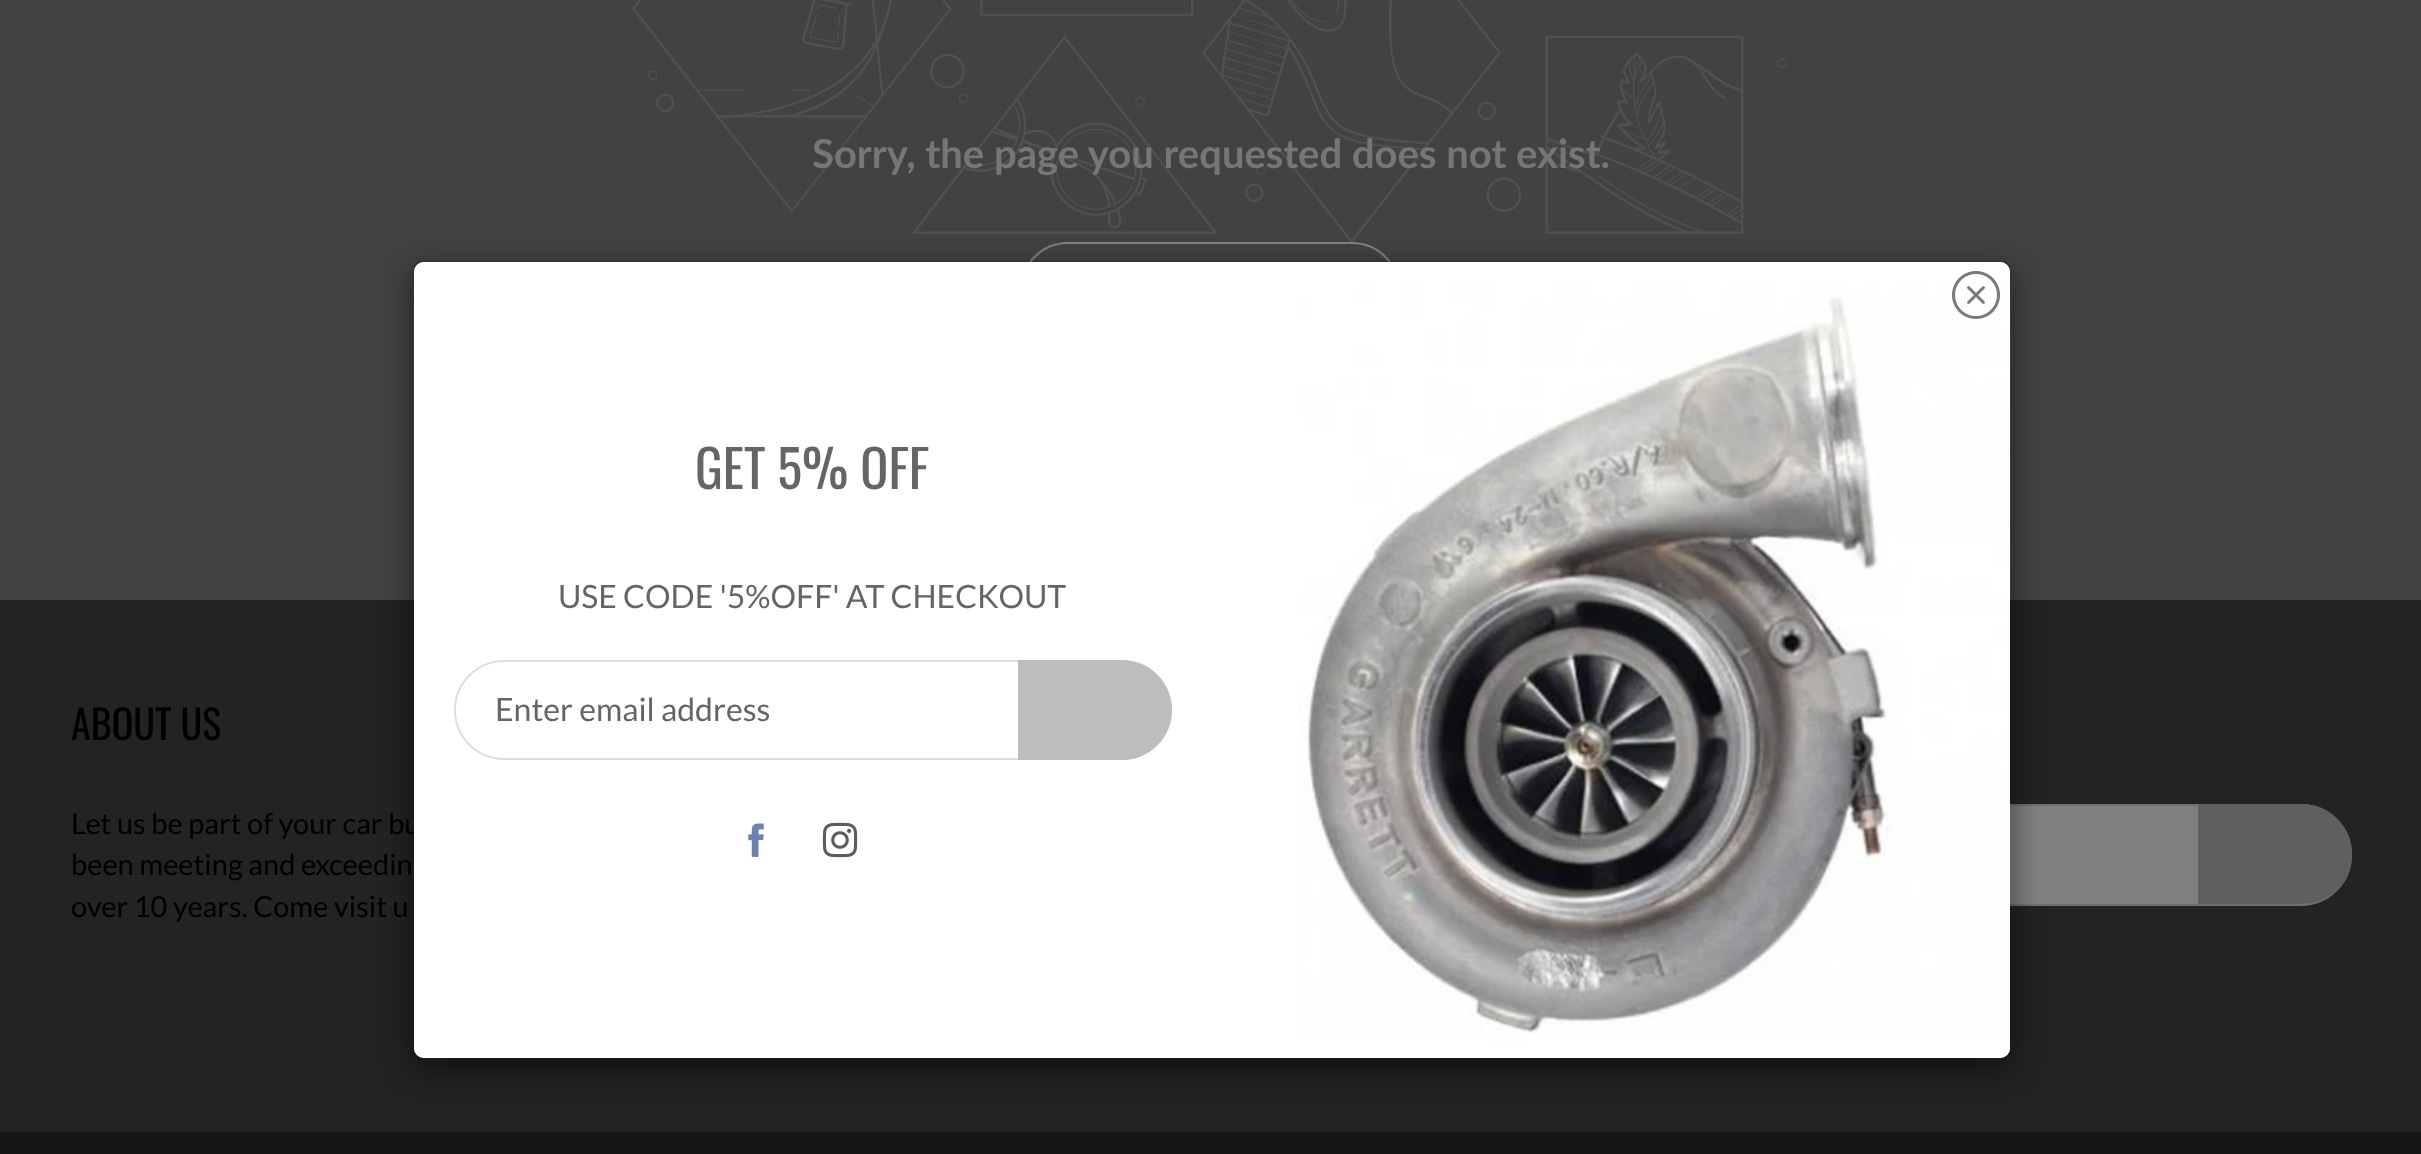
async function draw(canvas) {
  canvas.width = 2421;
  canvas.height = 1154;
  const ctx = canvas.getContext('2d');
  ctx.miterLimit = 4;
  ctx.fontKerning = 'normal';
  function label(s, x, y, font, color) {
    ctx.font = font;
    ctx.fillStyle = color;
    ctx.fillText(s, x, y);
  }
  function rect(x, y, w, h, color) {
    ctx.fillStyle = color;
    ctx.fillRect(x, y, w, h);
  }
  function roundedRect(x, y, w, h, r, color) {
    ctx.fillStyle = color;
    ctx.beginPath();
    ctx.roundRect(x, y, w, h, r);
    ctx.fill();
  }
  async function image(src, x, y, w, h) {
    const img = new Image();
    img.src = src;
    await img.decode();
    ctx.drawImage(img, x, y, w, h);
  }
  let path;

  rect(0, 0, 2421, 1154, '#232323');
  rect(0, 0, 2421, 600, '#424242');
  await image('assets/img1.png', 632, 0, 1155, 243);
  label('Sorry, the page you requested does not exist.', 812, 168, 'bold 40px Lato', '#767676');
  ctx.beginPath();
  ctx.roundRect(1021, 243, 378, 94, 47);
  ctx.strokeStyle = '#808080';
  ctx.lineWidth = 2;
  ctx.stroke();
  label('ABOUT US', 71, 740, '40px Oswald', '#000');
  label('Let us be part of your car bu', 71, 834, '29px Lato', '#000');
  label('been meeting and exceedin', 71, 875, '29px Lato', '#000');
  label('over 10 years. Come visit u', 71, 917, '29px Lato', '#000');
  ctx.fillStyle = '#808080';
  ctx.beginPath();
  ctx.roundRect(1673, 805, 678, 100, 50);
  ctx.fill();
  ctx.strokeStyle = '#6f6f6f';
  ctx.stroke();
  ctx.fillStyle = '#5f5f5f';
  ctx.beginPath();
  ctx.roundRect(2198, 804, 154, 100, [0, 50, 50, 0]);
  ctx.fill();
  rect(0, 1132, 2421, 22, '#161616');
  ctx.save();
  path = new Path2D('M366 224H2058V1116H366ZM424 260H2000C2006.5 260 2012 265.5 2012 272V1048C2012 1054.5 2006.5 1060 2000 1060H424C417.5 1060 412 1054.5 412 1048V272C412 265.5 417.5 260 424 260Z');
  ctx.clip(path, 'evenodd');
  ctx.fillStyle = '#00000080';
  ctx.filter = 'blur(15px)';
  ctx.beginPath();
  ctx.roundRect(412, 270, 1600, 800, 12);
  ctx.fill();
  ctx.filter = 'none';
  ctx.restore();
  roundedRect(414, 262, 1596, 796, 10, '#fff');
  ctx.beginPath();
  ctx.roundRect(413, 261, 1598, 798, 11);
  ctx.strokeStyle = '#00000033';
  ctx.stroke();
  ctx.beginPath();
  ctx.roundRect(414, 262, 798, 796, [10, 0, 0, 10]);
  ctx.fill();
  await image('assets/img5.png', 1299, 262, 711, 796);
  await image('assets/img2.png', 1952, 271, 48, 48);
  label('GET 5% OFF', 695, 489, '52px Oswald', '#666565');
  label('USE CODE \'5%OFF\' AT CHECKOUT', 558, 608, '32px Lato', '#666565');
  ctx.beginPath();
  ctx.roundRect(455, 661, 716, 98, 49);
  ctx.strokeStyle = '#ddd';
  ctx.stroke();
  label('Enter email address', 495, 721, '32px Lato', '#666565');
  ctx.fillStyle = '#bdbdbd';
  ctx.beginPath();
  ctx.roundRect(1018, 660, 154, 100, [0, 50, 50, 0]);
  ctx.fill();
  await image('assets/img3.png', 748, 823, 16, 34);
  await image('assets/img4.png', 822, 822, 36, 36);
}

draw(document.querySelector('canvas'));
